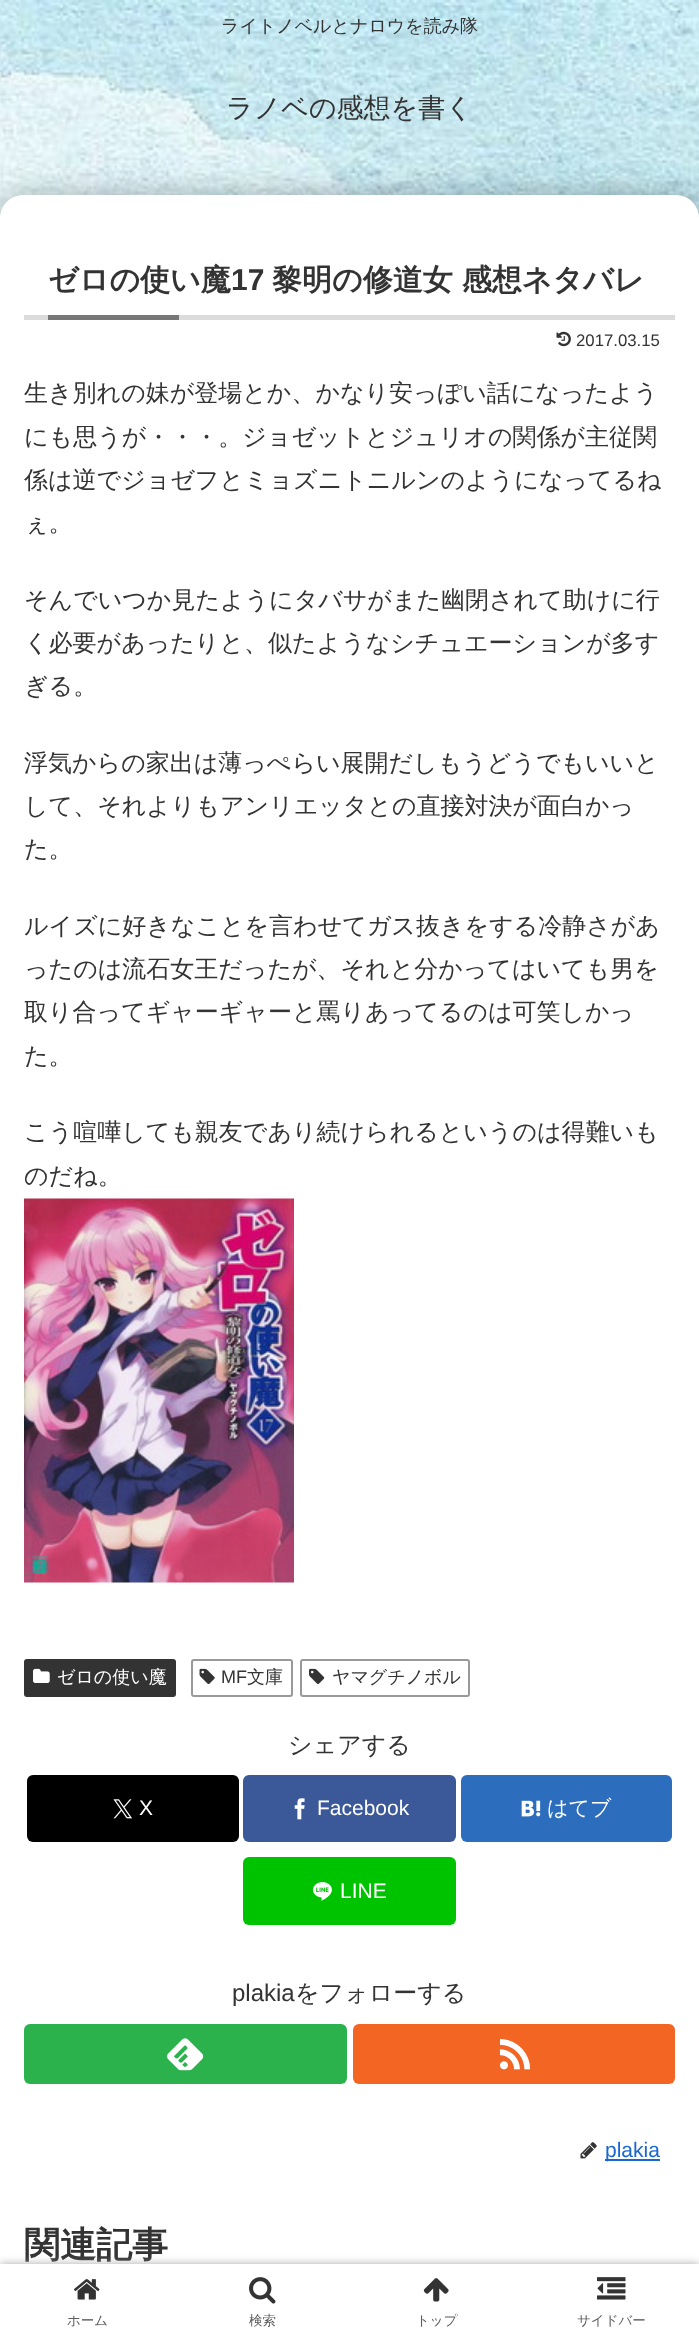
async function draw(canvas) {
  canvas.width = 699;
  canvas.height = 2338;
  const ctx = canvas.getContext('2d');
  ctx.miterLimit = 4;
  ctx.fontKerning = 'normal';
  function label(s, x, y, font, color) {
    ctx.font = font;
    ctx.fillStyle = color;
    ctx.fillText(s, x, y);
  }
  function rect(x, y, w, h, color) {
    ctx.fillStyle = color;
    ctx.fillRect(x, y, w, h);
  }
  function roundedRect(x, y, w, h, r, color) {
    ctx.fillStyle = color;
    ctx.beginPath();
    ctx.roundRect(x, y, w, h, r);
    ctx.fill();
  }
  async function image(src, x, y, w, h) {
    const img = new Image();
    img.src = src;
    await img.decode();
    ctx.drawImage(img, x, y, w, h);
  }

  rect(0, 0, 699, 2338, '#fff');
  await image('assets/img1.png', 0, 0, 699, 218);
  label('ライトノベルとナロウを読み隊', 221, 32, '500 18px WenQuanYi Zen Hei', '#333');
  label('ラノベの感想を書く', 226, 117, '500 27px WenQuanYi Zen Hei', '#333');
  ctx.fillStyle = '#0000004d';
  ctx.filter = 'blur(15px)';
  ctx.beginPath();
  ctx.roundRect(0, 195, 699, 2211, 23);
  ctx.fill();
  ctx.filter = 'none';
  roundedRect(0, 195, 699, 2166, 23, '#fff');
  rect(24, 315, 651, 5, '#dcdcdc');
  label('ゼロの使い魔', 48, 290, 'bold 30px WenQuanYi Zen Hei', '#333');
  label('17', 231, 290, 'bold 30px Liberation Sans', '#333');
  label('黎明の修道女 感想ネタバレ', 272, 290, 'bold 30px WenQuanYi Zen Hei', '#333');
  rect(48, 315, 131, 5, '#777');
  await image('assets/img2.png', 556, 331, 15, 16);
  label('2017.03.15', 576, 346, '16.75px Liberation Sans', '#333');
  label('生き別れの妹が登場とか、かなり安っぽい話になったよう', 24, 401, '500 24px WenQuanYi Zen Hei', '#333');
  label('にも思うが・・・。ジョゼットとジュリオの関係が主従関', 24, 445, '500 24px WenQuanYi Zen Hei', '#333');
  label('係は逆でジョゼフとミョズニトニルンのようになってるね', 24, 488, '500 24px WenQuanYi Zen Hei', '#333');
  label('ぇ。', 24, 531, '500 24px WenQuanYi Zen Hei', '#333');
  label('そんでいつか見たようにタバサがまた幽閉されて助けに行', 24, 608, '500 24px WenQuanYi Zen Hei', '#333');
  label('く必要があったりと、似たようなシチュエーションが多す', 24, 651, '500 24px WenQuanYi Zen Hei', '#333');
  label('ぎる。', 24, 694, '500 24px WenQuanYi Zen Hei', '#333');
  label('浮気からの家出は薄っぺらい展開だしもうどうでもいいと', 24, 771, '500 24px WenQuanYi Zen Hei', '#333');
  label('して、それよりもアンリエッタとの直接対決が面白かっ', 24, 814, '500 24px WenQuanYi Zen Hei', '#333');
  label('た。', 24, 857, '500 24px WenQuanYi Zen Hei', '#333');
  label('ルイズに好きなことを言わせてガス抜きをする冷静さがあ', 24, 934, '500 24px WenQuanYi Zen Hei', '#333');
  label('ったのは流石女王だったが、それと分かってはいても男を', 24, 977, '500 24px WenQuanYi Zen Hei', '#333');
  label('取り合ってギャーギャーと罵りあってるのは可笑しかっ', 24, 1020, '500 24px WenQuanYi Zen Hei', '#333');
  label('た。', 24, 1064, '500 24px WenQuanYi Zen Hei', '#333');
  label('こう喧嘩しても親友であり続けられるというのは得難いも', 24, 1140, '500 24px WenQuanYi Zen Hei', '#333');
  label('のだね。', 24, 1184, '500 24px WenQuanYi Zen Hei', '#333');
  await image('assets/img3.png', 24, 1198, 270, 385);
  roundedRect(24, 1659, 152, 38, 3, '#333');
  await image('assets/img4.png', 33, 1668, 17, 15);
  label('ゼロの使い魔', 57, 1683, '500 18px WenQuanYi Zen Hei', '#fff');
  ctx.beginPath();
  ctx.roundRect(192, 1660, 100, 36, 2);
  ctx.strokeStyle = '#999';
  ctx.lineWidth = 2;
  ctx.stroke();
  await image('assets/img5.png', 199, 1668, 16, 17);
  label('MF', 221, 1683, '18px Liberation Sans', '#333');
  label('文庫', 247, 1683, '500 18px WenQuanYi Zen Hei', '#333');
  ctx.beginPath();
  ctx.roundRect(301, 1660, 168, 36, 2);
  ctx.stroke();
  await image('assets/img6.png', 309, 1668, 16, 16);
  label('ヤマグチノボル', 332, 1683, '500 18px WenQuanYi Zen Hei', '#333');
  label('シェアする', 288, 1753, '500 24px WenQuanYi Zen Hei', '#333');
  roundedRect(27, 1775, 212, 67, 6, '#000');
  await image('assets/img7.png', 113, 1799, 19, 20);
  label('X', 139, 1815, '21px Liberation Sans', '#fff');
  roundedRect(243, 1775, 213, 67, 6, '#3b5998');
  await image('assets/img8.png', 294, 1798, 11, 22);
  label('Facebook', 317, 1815, '21px Liberation Sans', '#fff');
  roundedRect(461, 1775, 211, 67, 6, '#2c6ebd');
  await image('assets/img9.png', 521, 1800, 20, 17);
  label('はてブ', 547, 1815, '500 21px WenQuanYi Zen Hei', '#fff');
  roundedRect(243, 1857, 213, 68, 6, '#00c300');
  await image('assets/img10.png', 313, 1882, 19, 19);
  label('LINE', 340, 1898, '21px Liberation Sans', '#fff');
  label('plakia', 232, 2001, '24px Liberation Sans', '#333');
  label('をフォローする', 295, 2001, '500 24px WenQuanYi Zen Hei', '#333');
  roundedRect(24, 2024, 323, 60, 6, '#2bb24c');
  await image('assets/img11.png', 167, 2038, 37, 33);
  roundedRect(353, 2024, 322, 60, 6, '#f26522');
  await image('assets/img12.png', 499, 2039, 32, 31);
  await image('assets/img13.png', 580, 2142, 17, 17);
  rect(605, 2159, 55, 2, '#1967d2');
  label('plakia', 605, 2157, '21px Liberation Sans', '#1967d2');
  label('関連記事', 24, 2257, 'bold 36px WenQuanYi Zen Hei', '#333');
  ctx.fillStyle = '#a9a9a9';
  ctx.filter = 'blur(4px)';
  ctx.beginPath();
  ctx.rect(0, 2264, 699, 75);
  ctx.fill();
  ctx.filter = 'none';
  rect(0, 2264, 699, 74, '#fff');
  await image('assets/img14.png', 74, 2279, 26, 21);
  label('ホーム', 67, 2325, '500 13.5px WenQuanYi Zen Hei', '#5c5c5c');
  await image('assets/img15.png', 249, 2277, 27, 27);
  label('検索', 249, 2325, '500 13.5px WenQuanYi Zen Hei', '#5c5c5c');
  await image('assets/img16.png', 423, 2278, 26, 24);
  label('トップ', 416, 2325, '500 13.5px WenQuanYi Zen Hei', '#5c5c5c');
  await image('assets/img17.png', 597, 2277, 29, 23);
  label('サイドバー', 577, 2325, '500 13.5px WenQuanYi Zen Hei', '#5c5c5c');
}

draw(document.querySelector('canvas'));
